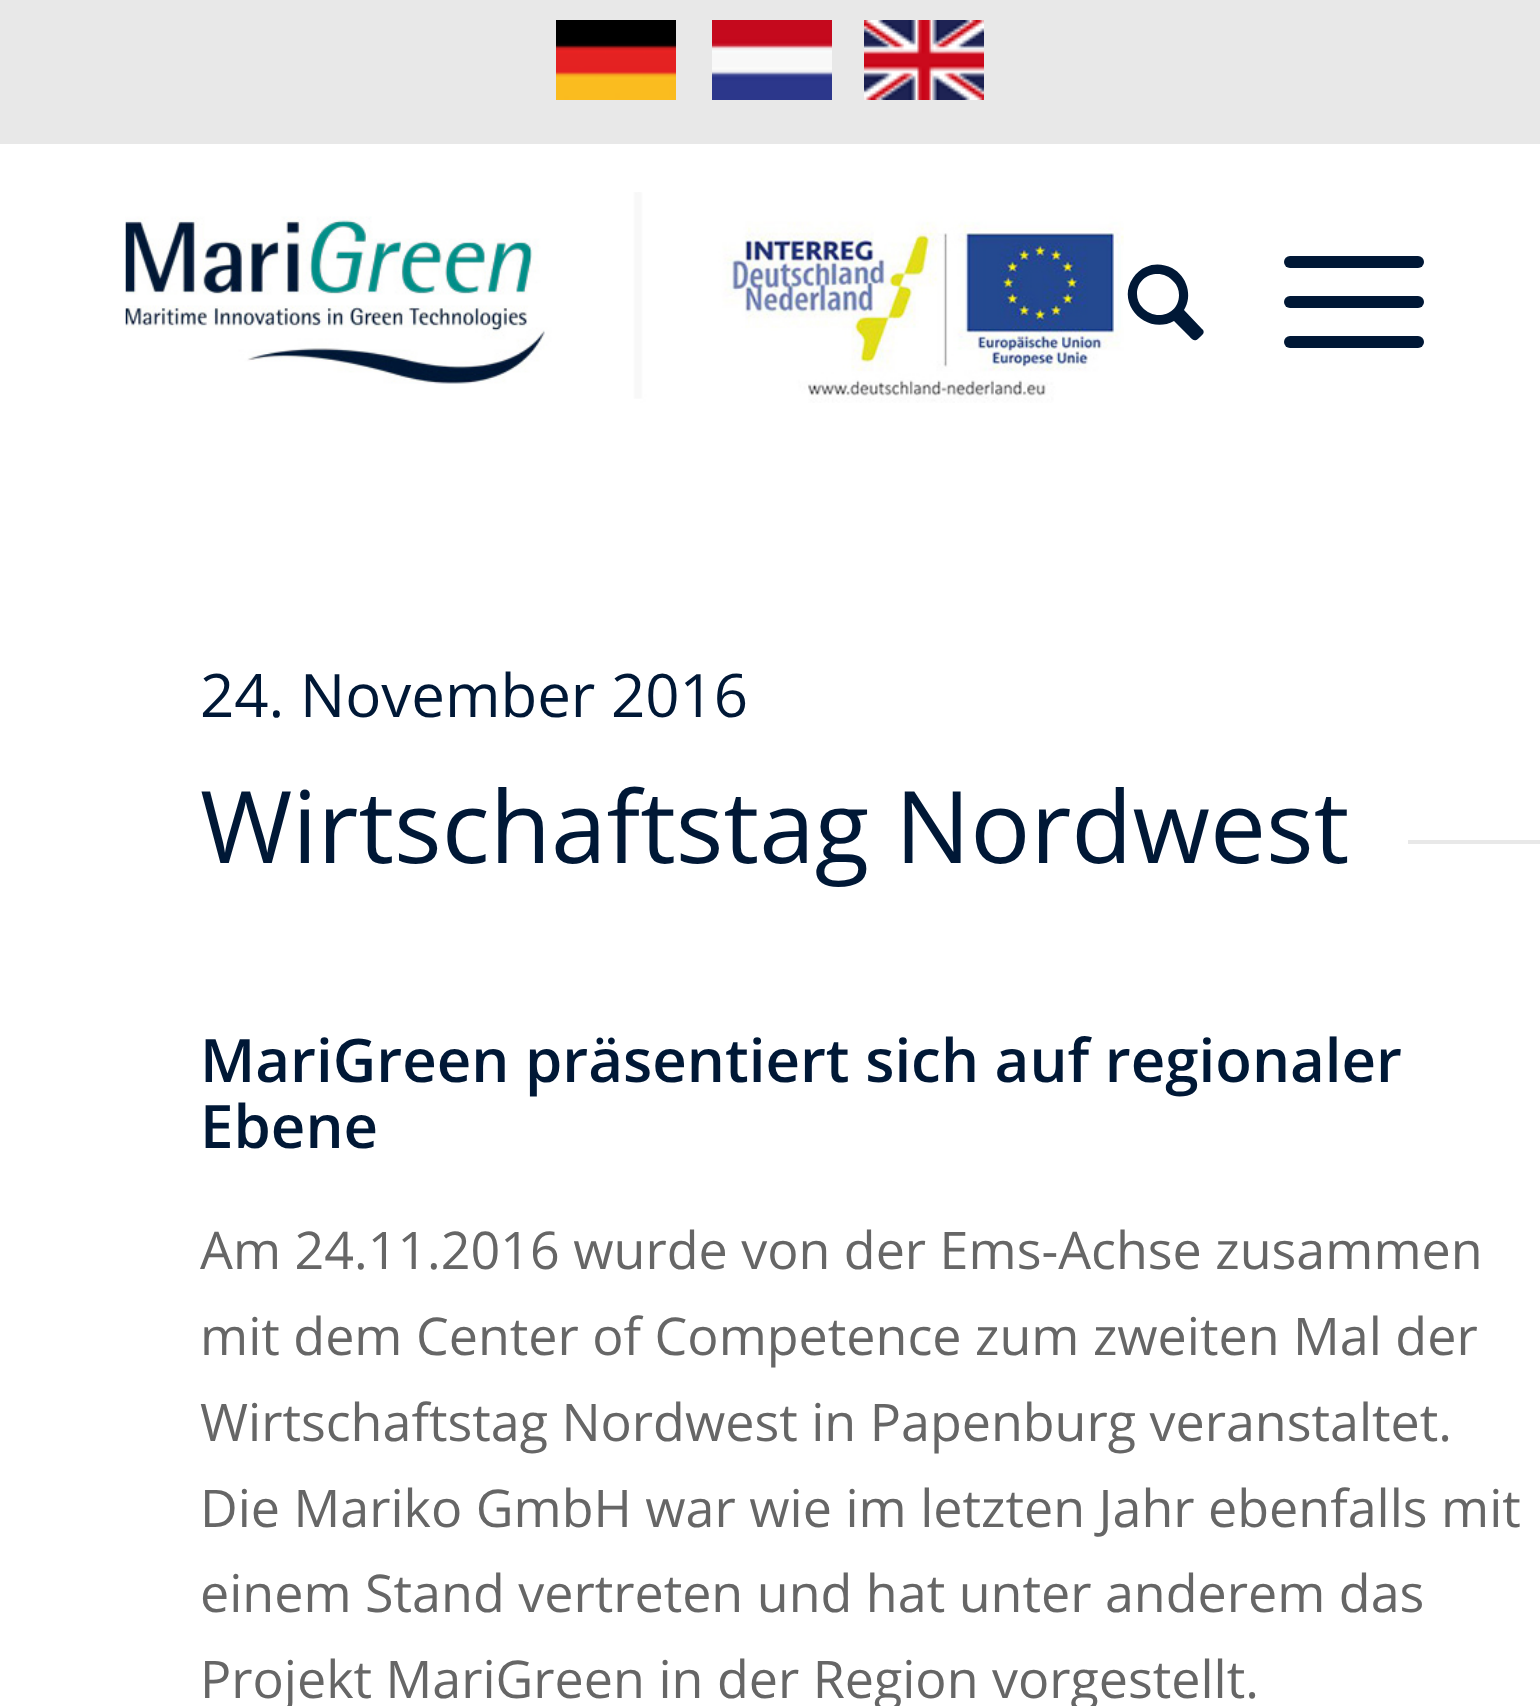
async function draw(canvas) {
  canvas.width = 1540;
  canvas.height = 1706;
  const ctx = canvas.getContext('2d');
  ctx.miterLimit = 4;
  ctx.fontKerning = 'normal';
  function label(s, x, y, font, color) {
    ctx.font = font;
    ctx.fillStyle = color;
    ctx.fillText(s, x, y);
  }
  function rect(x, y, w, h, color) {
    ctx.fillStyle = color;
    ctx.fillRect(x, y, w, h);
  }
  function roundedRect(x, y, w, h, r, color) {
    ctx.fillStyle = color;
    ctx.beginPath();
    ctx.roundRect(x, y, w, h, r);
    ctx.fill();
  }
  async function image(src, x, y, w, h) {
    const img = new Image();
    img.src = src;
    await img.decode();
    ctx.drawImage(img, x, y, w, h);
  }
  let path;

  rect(0, 0, 1540, 1706, '#fff');
  rect(0, 0, 1540, 144, '#e8e8e8');
  await image('assets/img1.png', 556, 20, 120, 80);
  await image('assets/img2.png', 712, 20, 120, 80);
  await image('assets/img3.png', 864, 20, 120, 80);
  await image('assets/img4.png', 125, 192, 999, 211);
  ctx.fillStyle = '#001836';
  path = new Path2D('M1202 329C1204 330 1204 333 1203 334C1196 341 1195 343 1189 336L1174 321C1147 336 1115 304 1133 278C1136 273 1141 269 1146 267C1154 263 1164 264 1172 268C1187 276 1193 296 1184 310ZM1137 294C1137 299 1139 304 1142 307C1155 322 1179 315 1179 295C1179 290 1177 285 1174 282C1162 267 1137 274 1137 294Z');
  ctx.fill(path);
  roundedRect(1284, 296, 140, 12, 6, '#001836');
  roundedRect(1284, 256, 140, 12, 6, '#001836');
  roundedRect(1284, 336, 140, 12, 6, '#001836');
  label('24. November 2016', 200, 717, '60px Open Sans', '#001836');
  label('Wirtschaftstag Nordwest', 200, 863, '100px Open Sans', '#001836');
  rect(1408, 840, 132, 4, '#e8e8e8');
  label('MariGreen präsentiert sich auf regionaler', 200, 1082, '600 60px Open Sans', '#001836');
  label('Ebene', 200, 1148, '600 60px Open Sans', '#001836');
  label('Am 24.11.2016 wurde von der Ems-Achse zusammen', 200, 1269, '52px Open Sans', '#666');
  label('mit dem Center of Competence zum zweiten Mal der', 200, 1355, '52px Open Sans', '#666');
  label('Wirtschaftstag Nordwest in Papenburg veranstaltet.', 200, 1441, '52px Open Sans', '#666');
  label('Die Mariko GmbH war wie im letzten Jahr ebenfalls mit', 200, 1527, '52px Open Sans', '#666');
  label('einem Stand vertreten und hat unter anderem das', 200, 1612, '52px Open Sans', '#666');
  label('Projekt MariGreen in der Region vorgestellt.', 200, 1698, '52px Open Sans', '#666');
}

draw(document.querySelector('canvas'));
